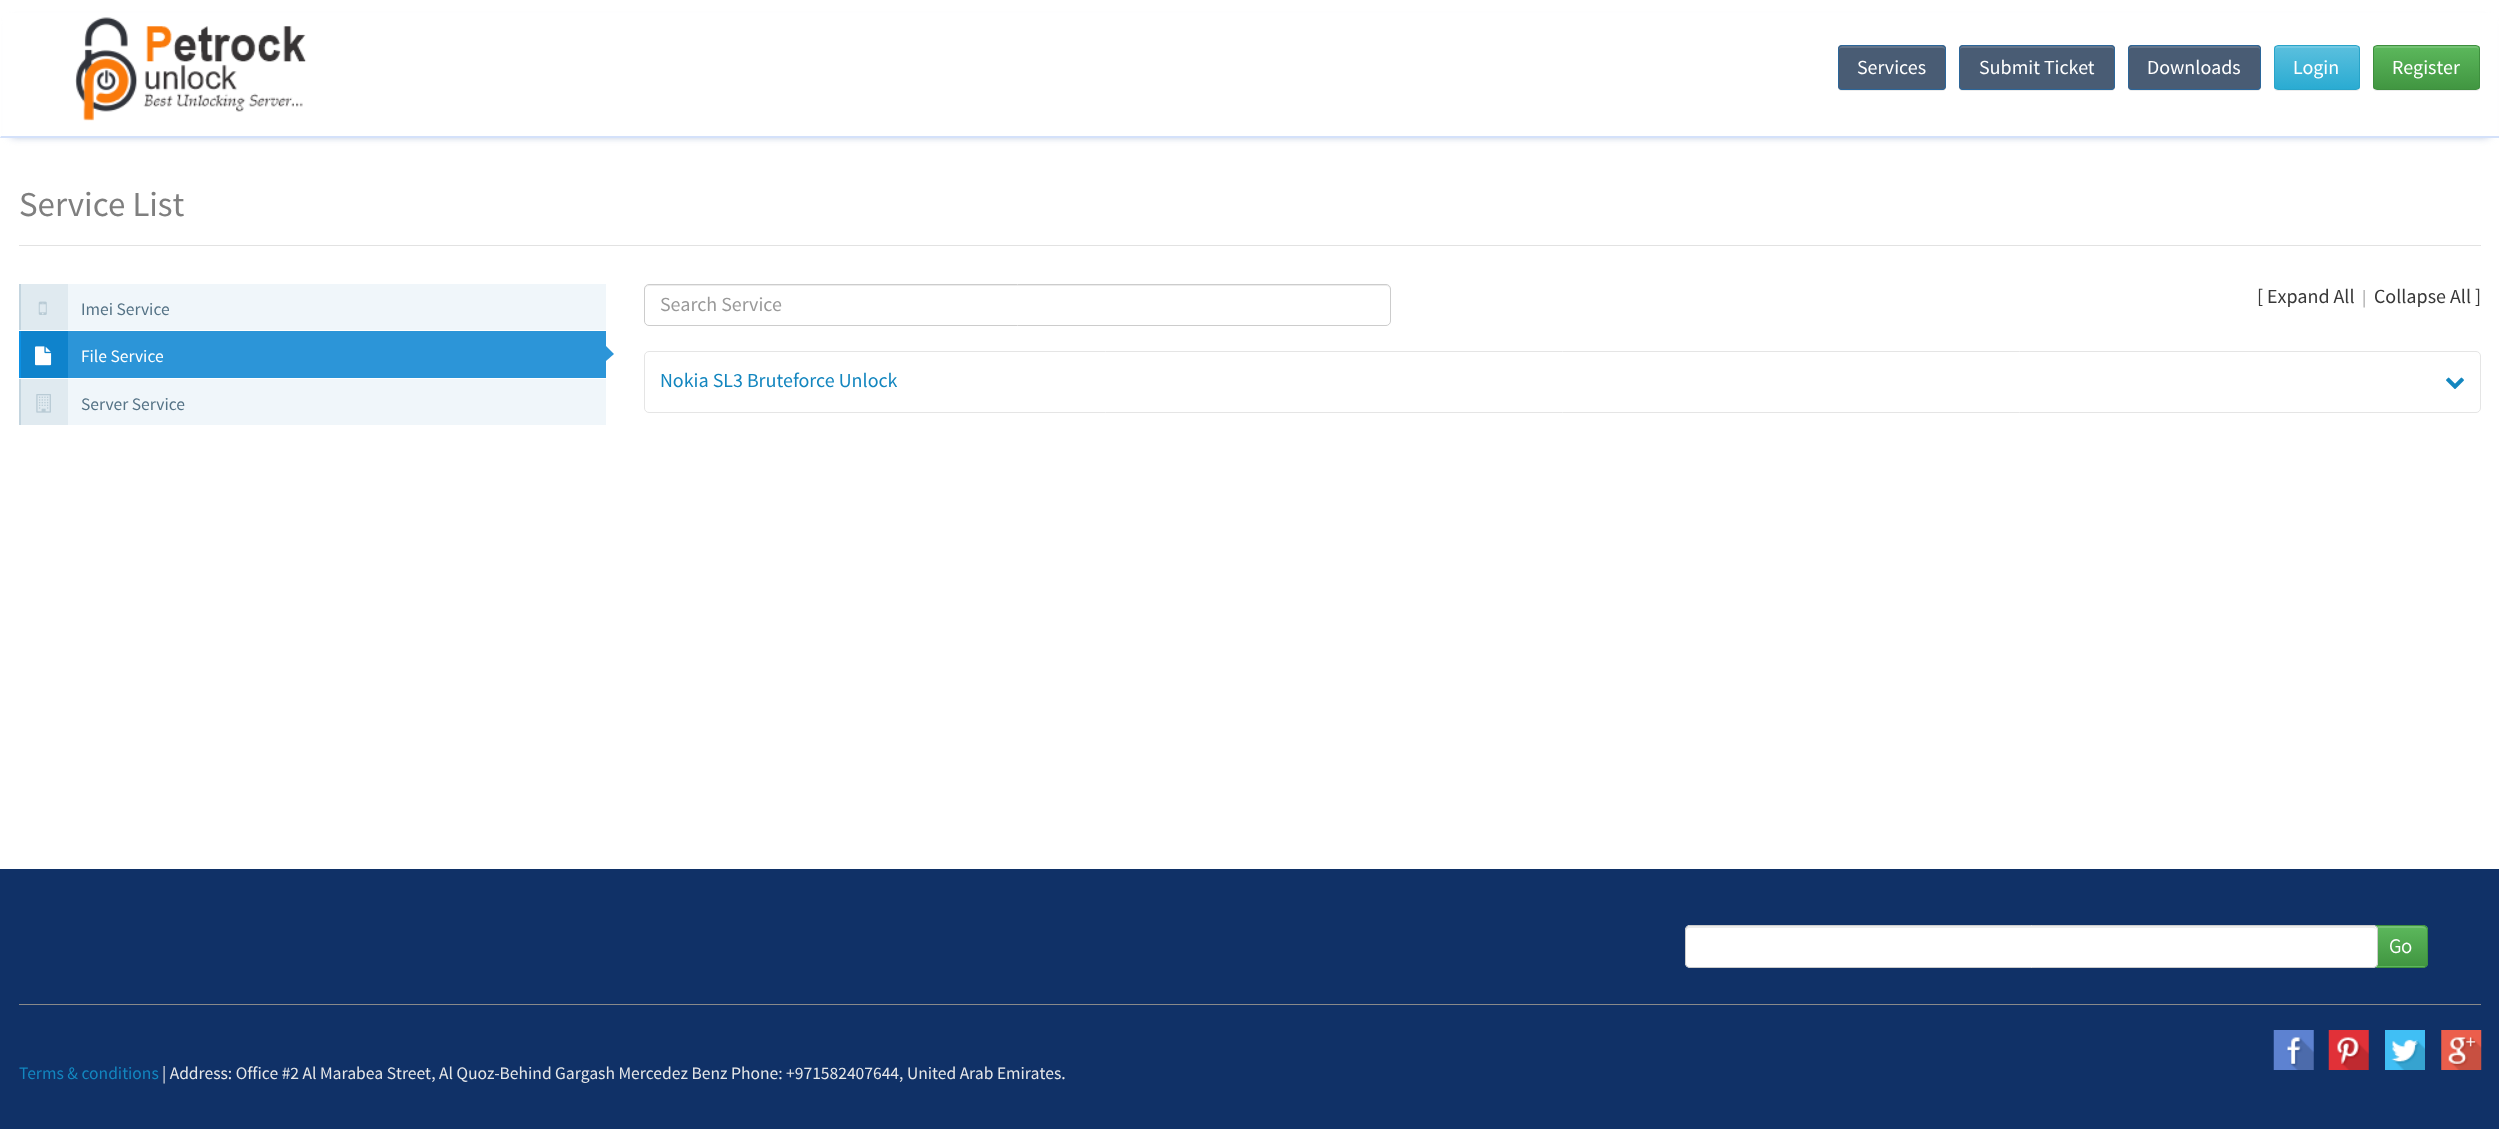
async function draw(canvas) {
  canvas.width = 2499;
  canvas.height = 1129;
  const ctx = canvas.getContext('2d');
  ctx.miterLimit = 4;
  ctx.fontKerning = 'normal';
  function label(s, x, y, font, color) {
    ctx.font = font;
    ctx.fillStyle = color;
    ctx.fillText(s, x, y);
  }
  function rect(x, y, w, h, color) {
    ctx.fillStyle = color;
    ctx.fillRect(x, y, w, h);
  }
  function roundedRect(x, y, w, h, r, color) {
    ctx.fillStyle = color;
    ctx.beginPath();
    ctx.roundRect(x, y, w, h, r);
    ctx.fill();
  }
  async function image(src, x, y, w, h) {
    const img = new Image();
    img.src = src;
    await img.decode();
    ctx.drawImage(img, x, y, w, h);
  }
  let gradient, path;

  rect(0, 0, 2499, 1129, '#fff');
  ctx.fillStyle = '#9fafce';
  ctx.filter = 'blur(4px)';
  ctx.beginPath();
  ctx.rect(11, 21, 2478, 115);
  ctx.fill();
  ctx.filter = 'none';
  rect(3, 13, 2494, 125, '#fff');
  ctx.fillStyle = '#d4e1fa';
  path = new Path2D('M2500 138H0L1 136H2499Z');
  ctx.fill(path);
  await image('assets/img1.png', 75, 17, 232, 104);
  ctx.fillStyle = '#00000012';
  ctx.filter = 'blur(0.5px)';
  ctx.beginPath();
  ctx.roundRect(1838, 46, 108, 45, 4);
  ctx.fill();
  ctx.filter = 'none';
  roundedRect(1838, 45, 108, 45, 4, '#495c74');
  ctx.fillStyle = '#647489';
  path = new Path2D('M1841 48H1942C1944 48 1945 49 1945 50V48C1945 47 1944 46 1942 46H1842C1840 46 1839 47 1839 48V50C1839 49 1840 48 1841 48Z');
  ctx.fill(path);
  ctx.beginPath();
  ctx.roundRect(1838.5, 45.5, 107, 44, 3.5);
  ctx.strokeStyle = '#2b669a';
  ctx.stroke();
  label('Services', 1857, 74, '20px Source Sans Pro', '#fff');
  ctx.fillStyle = '#00000012';
  ctx.filter = 'blur(0.5px)';
  ctx.beginPath();
  ctx.roundRect(1959, 46, 156, 45, 4);
  ctx.fill();
  ctx.filter = 'none';
  roundedRect(1959, 45, 156, 45, 4, '#495c74');
  ctx.fillStyle = '#647489';
  path = new Path2D('M1962 48H2111C2113 48 2114 49 2114 50C2114 48 2114 46 2112 46H1962C1960 46 1960 48 1960 50C1960 49 1961 48 1962 48Z');
  ctx.fill(path);
  ctx.beginPath();
  ctx.roundRect(1959.5, 45.5, 155, 44, 3.5);
  ctx.stroke();
  label('Submit Ticket', 1979, 74, '20px Source Sans Pro', '#fff');
  ctx.fillStyle = '#00000012';
  ctx.filter = 'blur(0.5px)';
  ctx.beginPath();
  ctx.roundRect(2128, 46, 133, 45, 4);
  ctx.fill();
  ctx.filter = 'none';
  roundedRect(2128, 45, 133, 45, 4, '#495c74');
  ctx.fillStyle = '#647489';
  path = new Path2D('M2131 48H2258C2259 48 2260 49 2260 50V48C2260 47 2259 46 2258 46H2132C2130 46 2129 47 2129 48V50C2129 49 2130 48 2131 48Z');
  ctx.fill(path);
  ctx.beginPath();
  ctx.roundRect(2128.5, 45.5, 132, 44, 3.5);
  ctx.stroke();
  label('Downloads', 2147, 74, '20px Source Sans Pro', '#fff');
  ctx.fillStyle = '#00000012';
  ctx.filter = 'blur(0.5px)';
  ctx.beginPath();
  ctx.roundRect(2274, 46, 86, 45, 4);
  ctx.fill();
  ctx.filter = 'none';
  ctx.save();
  ctx.beginPath();
  ctx.roundRect(2274, 45, 86, 45, 4);
  ctx.clip();
  gradient = ctx.createLinearGradient(2317, 46, 2317, 89);
  gradient.addColorStop(0, '#5bc0de');
  gradient.addColorStop(1, '#2aabd2');
  ctx.fillStyle = gradient;
  ctx.fillRect(2274, 46, 86, 43);
  ctx.restore();
  ctx.fillStyle = '#ffffff26';
  path = new Path2D('M2278 48H2356C2358 48 2359 49 2359 50C2359 42 2349 46 2343 46H2291C2285 46 2275 42 2275 50C2275 49 2276 48 2278 48Z');
  ctx.fill(path);
  ctx.beginPath();
  ctx.roundRect(2274.5, 45.5, 85, 44, 3.5);
  ctx.strokeStyle = '#28a4c9';
  ctx.stroke();
  label('Login', 2293, 74, '20px Source Sans Pro', '#fff');
  ctx.fillStyle = '#00000012';
  ctx.filter = 'blur(0.5px)';
  ctx.beginPath();
  ctx.roundRect(2373, 46, 107, 45, 4);
  ctx.fill();
  ctx.filter = 'none';
  ctx.save();
  ctx.beginPath();
  ctx.roundRect(2373, 45, 107, 45, 4);
  ctx.clip();
  gradient = ctx.createLinearGradient(2426, 46, 2426, 89);
  gradient.addColorStop(0, '#5cb85c');
  gradient.addColorStop(1, '#419641');
  ctx.fillStyle = gradient;
  ctx.fillRect(2373, 46, 107, 43);
  ctx.restore();
  ctx.fillStyle = '#74c274';
  path = new Path2D('M2376 48H2476C2478 48 2479 49 2479 50V48C2479 47 2478 46 2476 46H2376C2375 46 2374 47 2374 48V50C2374 49 2375 48 2376 48Z');
  ctx.fill(path);
  ctx.beginPath();
  ctx.roundRect(2373.5, 45.5, 106, 44, 3.5);
  ctx.strokeStyle = '#3e8f3e';
  ctx.stroke();
  label('Register', 2392, 74, '20px Source Sans Pro', '#fff');
  rect(19, 245, 2462, 1, '#e2e2e2');
  label('Service List', 19, 216, '35px Source Sans Pro', '#7f7f7f');
  rect(68, 284, 538, 46, '#f0f6fa');
  rect(19, 284, 2, 46, '#c4d5df');
  rect(21, 284, 47, 46, '#e0eaf0');
  await image('assets/img2.png', 38, 301, 9, 14);
  label('Imei Service', 81, 315, '17.5px Source Sans Pro', '#557386');
  rect(68, 331, 538, 47, '#2c95d8');
  rect(19, 331, 2, 47, '#0c91e5');
  rect(21, 331, 47, 47, '#0f83cc');
  await image('assets/img3.png', 35, 346, 17, 20);
  label('File Service', 81, 362, '17.5px Source Sans Pro', '#fff');
  ctx.fillStyle = '#2c95d8';
  path = new Path2D('M606 361V346L614 354Z');
  ctx.fill(path);
  rect(68, 379, 538, 46, '#f0f6fa');
  rect(19, 379, 2, 46, '#c4d5df');
  rect(21, 379, 47, 46, '#e0eaf0');
  await image('assets/img4.png', 36, 394, 15, 19);
  label('Server Service', 81, 410, '17.5px Source Sans Pro', '#557386');
  ctx.fillStyle = '#ececec';
  path = new Path2D('M649 286H1386C1388 286 1390 288 1390 290V289C1390 287 1388 285 1386 285H649C647 285 645 287 645 289V290C645 288 647 286 649 286Z');
  ctx.fill(path);
  ctx.beginPath();
  ctx.roundRect(644.5, 284.5, 746, 41, 4.5);
  ctx.strokeStyle = '#ccc';
  ctx.stroke();
  label('Search Service', 660, 311, '20px Source Sans Pro', '#9a9a9a');
  label('[ Expand All', 2257, 303, '20px Source Sans Pro', '#383838');
  label('|', 2362, 303, '17.5px Source Sans Pro', '#9a9a9a');
  label('Collapse All ]', 2374, 303, '20px Source Sans Pro', '#383838');
  ctx.beginPath();
  ctx.roundRect(644.5, 351.5, 1836, 61, 4.5);
  ctx.strokeStyle = '#e5e5e5';
  ctx.stroke();
  label('Nokia SL3 Bruteforce Unlock', 660, 387, '20px Source Sans Pro', '#1386bf');
  await image('assets/img5.png', 2446, 377, 18, 12);
  rect(0, 869, 2499, 260, '#103167');
  roundedRect(2373, 925, 55, 43, 5, '#5cb85c');
  ctx.save();
  ctx.beginPath();
  ctx.roundRect(2373, 925, 55, 43, 5);
  ctx.clip();
  gradient = ctx.createLinearGradient(2400, 926, 2400, 966);
  gradient.addColorStop(0, '#5cb85c');
  gradient.addColorStop(1, '#419641');
  ctx.fillStyle = gradient;
  ctx.fillRect(2376, 926, 52, 40);
  ctx.restore();
  ctx.fillStyle = '#74c274';
  path = new Path2D('M2378 928H2422C2425 928 2426 929 2426 931C2426 925 2420 926 2415 926H2385C2380 926 2374 925 2374 931C2374 929 2375 928 2378 928Z');
  ctx.fill(path);
  ctx.beginPath();
  ctx.roundRect(2373.5, 925.5, 54, 42, 4.5);
  ctx.strokeStyle = '#3e8f3e';
  ctx.stroke();
  roundedRect(1685, 925, 693, 43, 5, '#fff');
  ctx.fillStyle = '#ececec';
  path = new Path2D('M1690 928H2372C2375 928 2376 929 2376 931C2376 928 2375 926 2372 926H1690L1687 927L1686 928V931C1686 929 1688 928 1690 928Z');
  ctx.fill(path);
  ctx.beginPath();
  ctx.roundRect(1685.5, 925.5, 692, 42, 4.5);
  ctx.strokeStyle = '#ccc';
  ctx.stroke();
  label('Go', 2389, 953, 'bold 20px Source Sans Pro', '#fff');
  rect(19, 1004, 2462, 1, '#898989');
  await image('assets/img6.png', 2273, 1030, 41, 40);
  await image('assets/img7.png', 2328, 1030, 41, 40);
  await image('assets/img8.png', 2385, 1030, 40, 40);
  await image('assets/img9.png', 2441, 1030, 41, 40);
  label('Terms & conditions', 19, 1079, '17.5px Source Sans Pro', '#1386bf');
  label('| Address: Office #2 Al Marabea Street, Al Quoz-Behind Gargash Mercedez Benz Phone: +971582407644, United Arab Emirates.', 162, 1079, '17.5px Source Sans Pro', '#e6e7e8');
}

draw(document.querySelector('canvas'));
